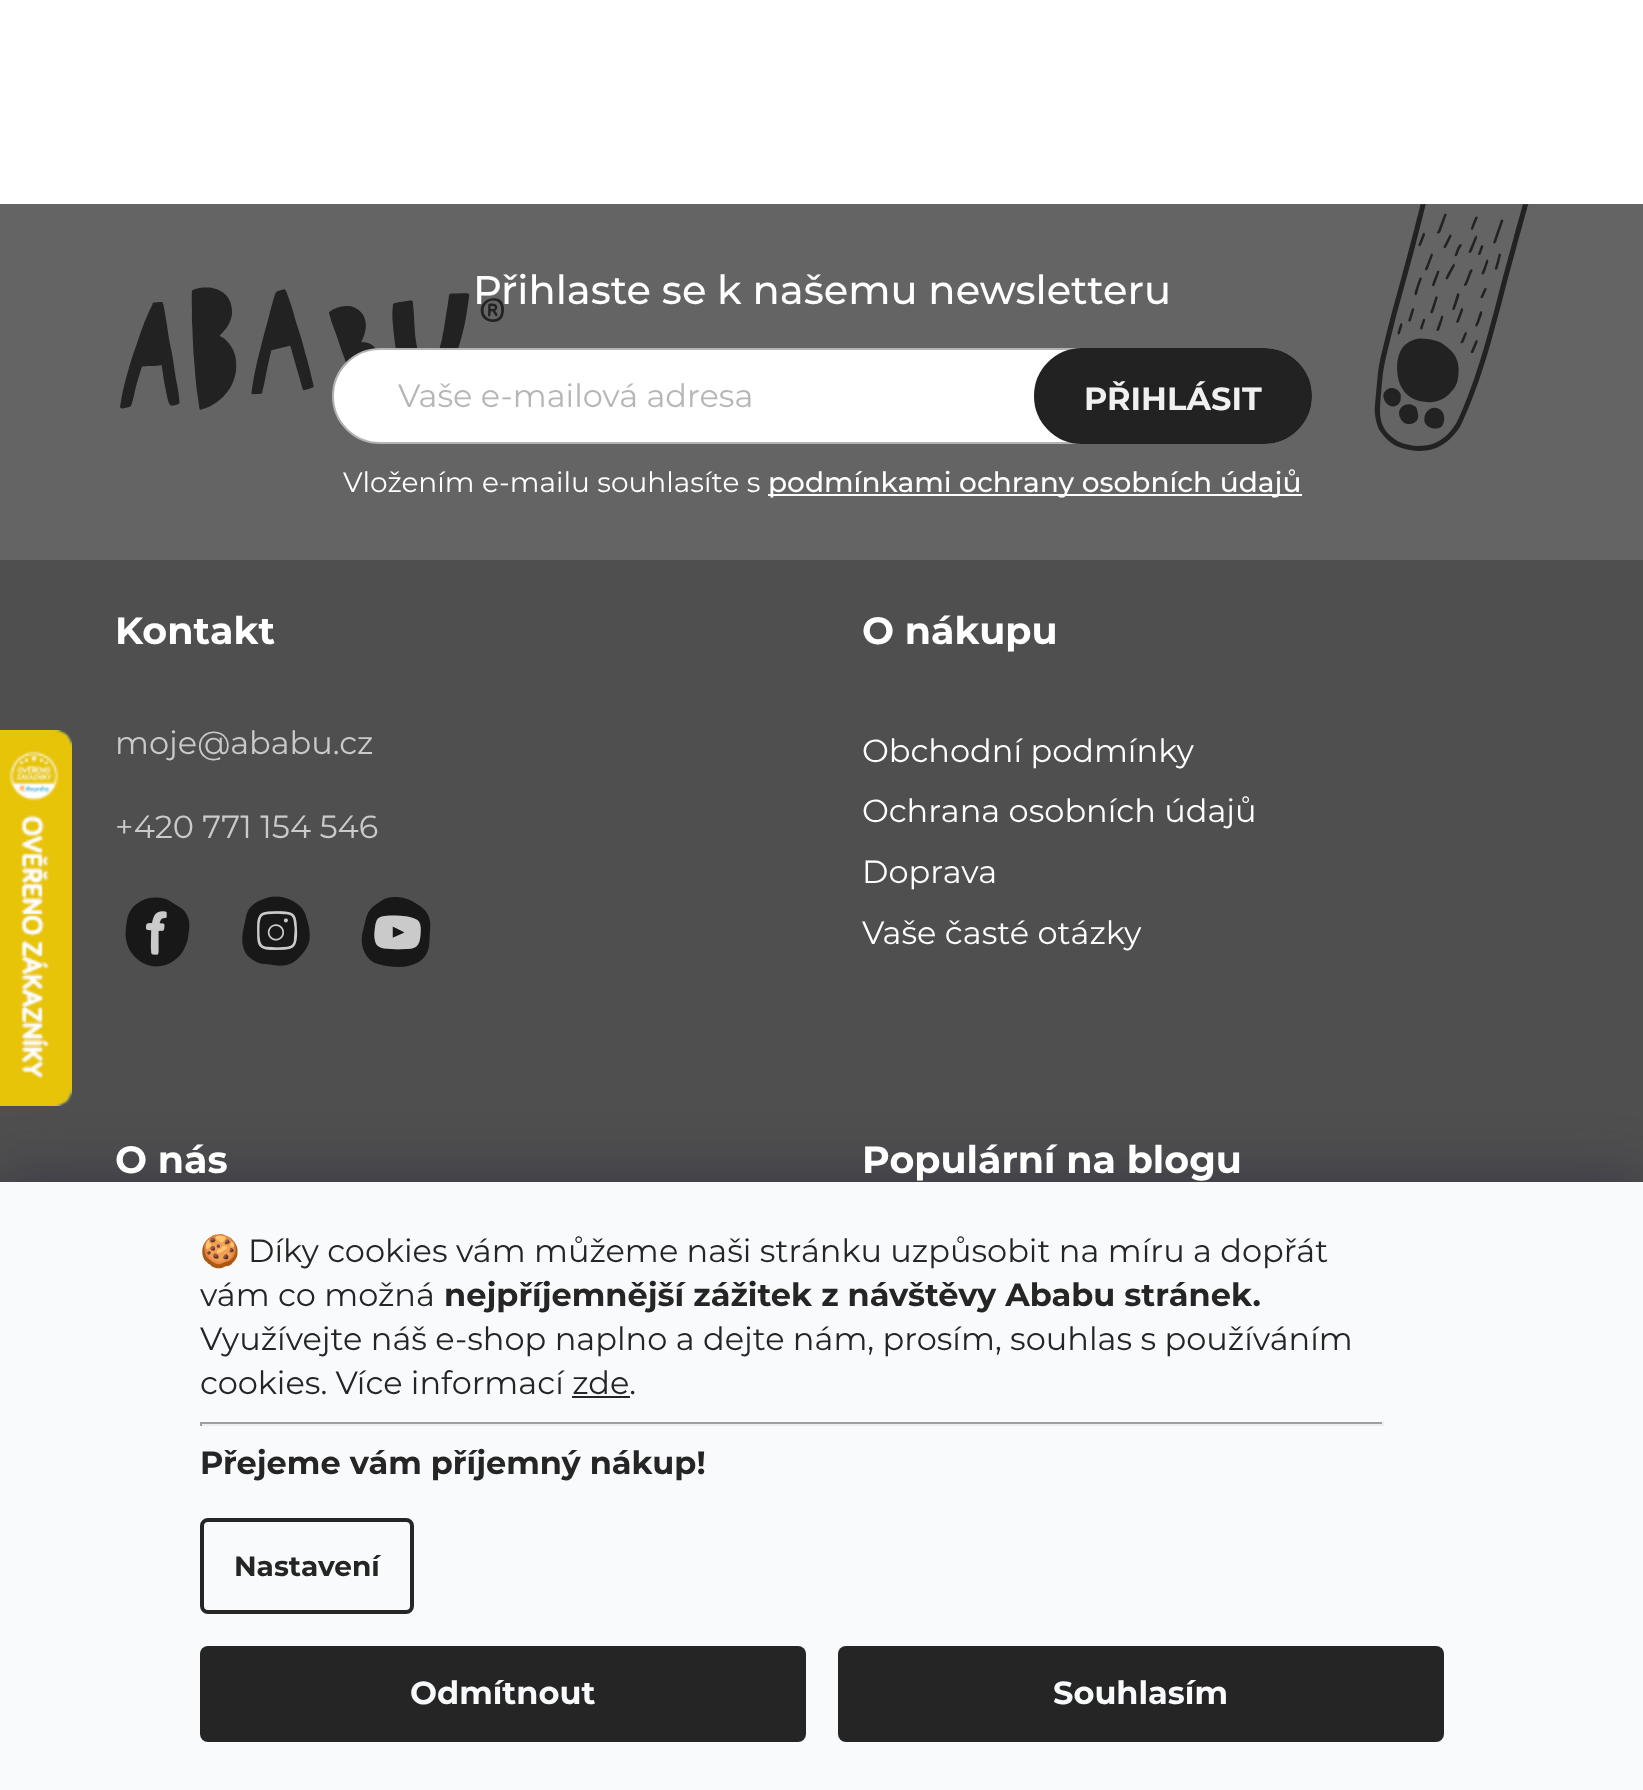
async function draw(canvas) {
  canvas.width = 1643;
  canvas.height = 1790;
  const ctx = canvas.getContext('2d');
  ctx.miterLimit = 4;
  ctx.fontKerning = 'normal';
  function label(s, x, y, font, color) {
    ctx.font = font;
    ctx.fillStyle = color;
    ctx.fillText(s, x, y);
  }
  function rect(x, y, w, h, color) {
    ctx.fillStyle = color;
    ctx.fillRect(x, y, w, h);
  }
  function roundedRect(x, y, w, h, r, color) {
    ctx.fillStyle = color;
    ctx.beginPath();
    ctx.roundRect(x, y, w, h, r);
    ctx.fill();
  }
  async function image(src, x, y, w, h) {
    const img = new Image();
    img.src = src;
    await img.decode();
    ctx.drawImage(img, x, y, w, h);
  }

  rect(0, 0, 1643, 1790, '#fff');
  rect(0, 560, 1643, 622, '#4f4f4f');
  ctx.save();
  ctx.beginPath();
  ctx.rect(0, 204, 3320, 356);
  ctx.clip();
  ctx.strokeStyle = '#646464';
  ctx.lineWidth = 1790;
  ctx.strokeRect(-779, -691, 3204, 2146);
  ctx.restore();
  ctx.fillStyle = '#1b193980';
  ctx.filter = 'blur(30px)';
  ctx.beginPath();
  ctx.rect(0, 1182, 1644, 608);
  ctx.fill();
  ctx.filter = 'none';
  await image('assets/img1.png', 0, 730, 72, 376);
  rect(116, 204, 1414, 356, '#646464');
  await image('assets/img2.png', 120, 204, 1409, 247);
  label('Přihlaste se k našemu newsletteru', 473, 304, '500 40px Montserrat', '#fff');
  ctx.beginPath();
  ctx.roundRect(333, 349, 978, 94, 47);
  ctx.fill();
  ctx.strokeStyle = '#b3b3b3';
  ctx.lineWidth = 2;
  ctx.stroke();
  label('Vaše e-mailová adresa', 398, 407, '32px Montserrat', '#b6b6b6');
  ctx.fillStyle = '#222';
  ctx.beginPath();
  ctx.roundRect(1035, 349, 276, 94, 47);
  ctx.fill();
  ctx.strokeStyle = '#222';
  ctx.stroke();
  label('PŘIHLÁSIT', 1084, 410, 'bold 32px Montserrat', '#f0f0f0');
  label('Vložením e-mailu souhlasíte s', 343, 492, '28px Montserrat', '#fff');
  rect(768, 494, 534, 2, '#fff');
  label('podmínkami ochrany osobních údajů', 768, 492, '500 28px Montserrat', '#fff');
  label('Kontakt', 115, 644, 'bold 38px Montserrat', '#fff');
  label('moje@ababu.cz', 115, 754, '32px Montserrat', '#cacaca');
  label('+420 771 154 546', 115, 838, '32px Montserrat', '#cacaca');
  await image('assets/img3.png', 125, 897, 65, 70);
  await image('assets/img4.png', 242, 896, 68, 70);
  await image('assets/img5.png', 361, 897, 70, 70);
  label('O nákupu', 862, 644, 'bold 38px Montserrat', '#fff');
  label('Obchodní podmínky', 862, 762, '32px Montserrat', '#fff');
  label('Ochrana osobních údajů', 862, 822, '32px Montserrat', '#fff');
  label('Doprava', 862, 883, '32px Montserrat', '#fff');
  label('Vaše časté otázky', 862, 944, '32px Montserrat', '#fff');
  label('O nás', 115, 1173, 'bold 38px Montserrat', '#fff');
  label('Populární na blogu', 862, 1173, 'bold 38px Montserrat', '#fff');
  rect(0, 1182, 1643, 608, '#f8fafb');
  label('🍪', 200, 1262, '32px Noto Color Emoji', '#252525');
  label('Díky cookies vám můžeme naši stránku uzpůsobit na míru a dopřát', 248, 1262, '32px Montserrat', '#252525');
  label('vám co možná', 200, 1306, '32px Montserrat', '#252525');
  label('nejpříjemnější zážitek z návštěvy Ababu stránek.', 444, 1306, 'bold 32px Montserrat', '#252525');
  label('Využívejte náš e-shop naplno a dejte nám, prosím, souhlas s používáním', 200, 1350, '32px Montserrat', '#252525');
  label('cookies. Více informací zde.', 200, 1394, '32px Montserrat', '#252525');
  rect(572, 1396, 58, 2, '#252525');
  rect(200, 1422, 1184, 2, '#9f9f9f');
  rect(1382, 1422, 2, 4, '#eee');
  rect(200, 1424, 1184, 2, '#eee');
  rect(200, 1422, 2, 4, '#9f9f9f');
  label('Přejeme vám příjemný nákup!', 200, 1474, 'bold 32px Montserrat', '#252525');
  ctx.beginPath();
  ctx.roundRect(202, 1520, 210, 92, 6);
  ctx.strokeStyle = '#252525';
  ctx.lineWidth = 4;
  ctx.stroke();
  label('Nastavení', 234, 1576, 'bold 28px Montserrat', '#252525');
  roundedRect(200, 1646, 606, 96, 8, '#252525');
  label('Odmítnout', 410, 1704, 'bold 32px Montserrat', '#f8fafb');
  roundedRect(838, 1646, 606, 96, 8, '#252525');
  label('Souhlasím', 1053, 1704, 'bold 32px Montserrat', '#f8fafb');
}

draw(document.querySelector('canvas'));
